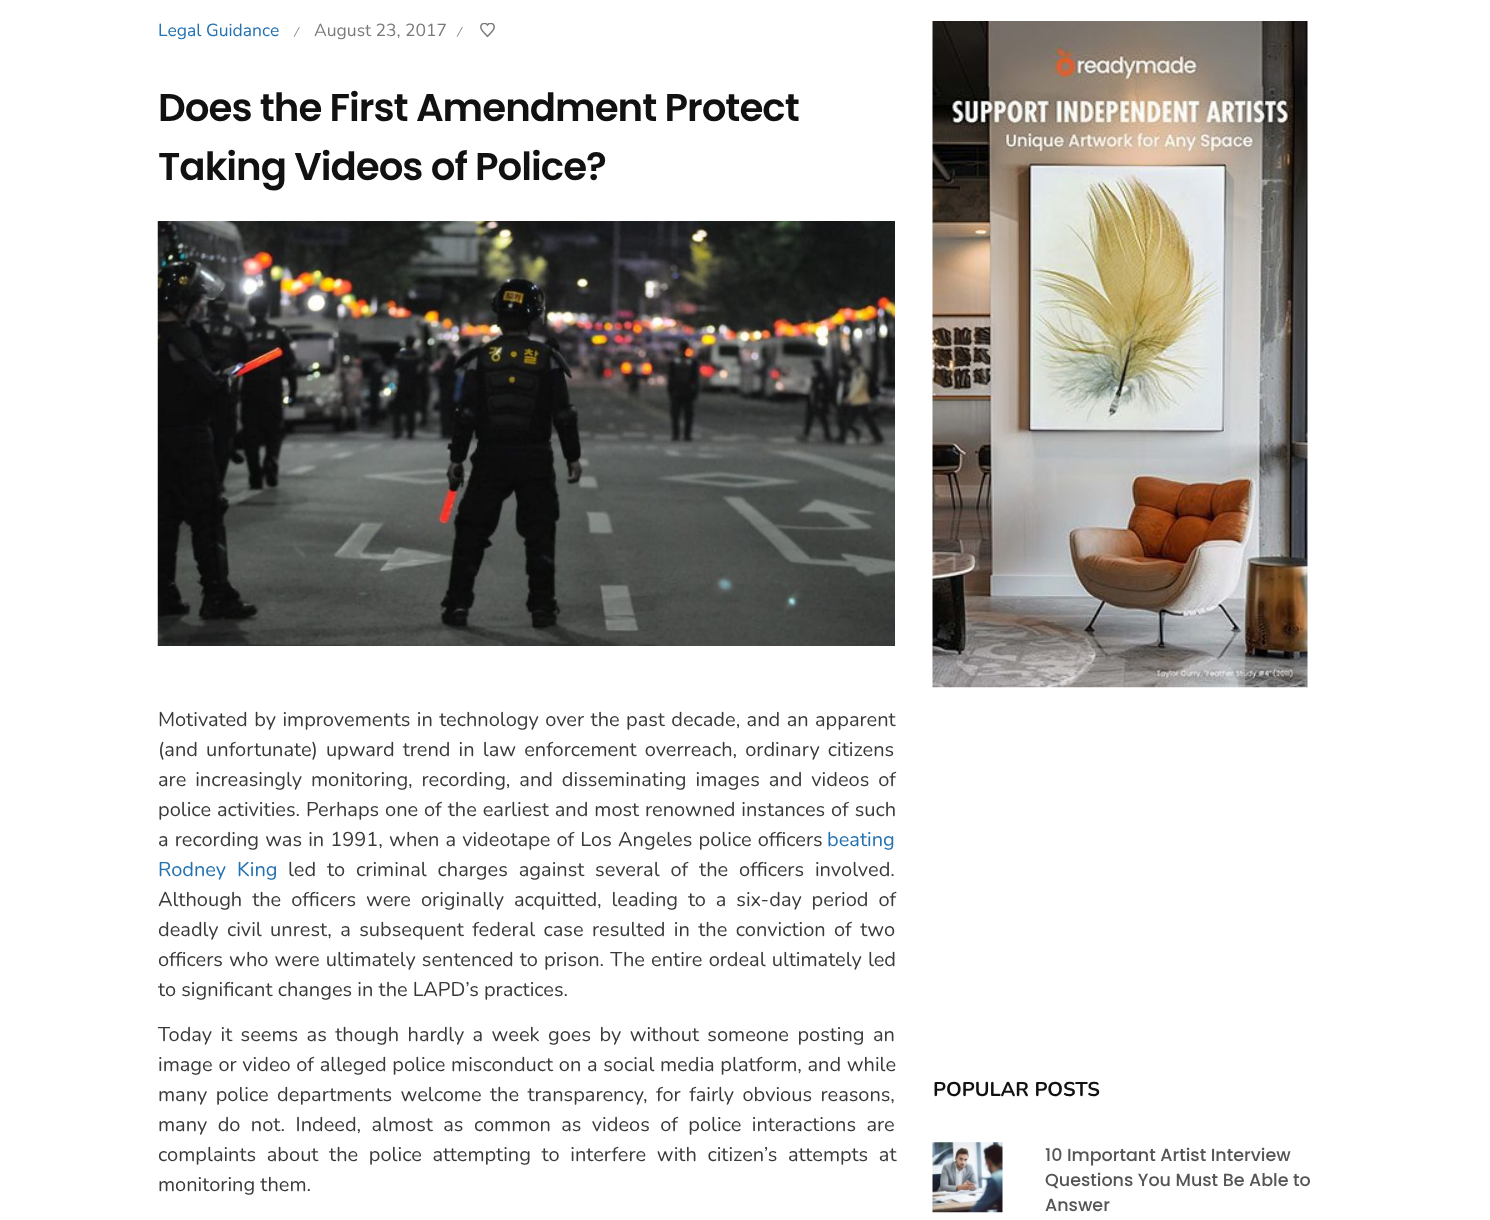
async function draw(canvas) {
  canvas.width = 1490;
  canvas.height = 1220;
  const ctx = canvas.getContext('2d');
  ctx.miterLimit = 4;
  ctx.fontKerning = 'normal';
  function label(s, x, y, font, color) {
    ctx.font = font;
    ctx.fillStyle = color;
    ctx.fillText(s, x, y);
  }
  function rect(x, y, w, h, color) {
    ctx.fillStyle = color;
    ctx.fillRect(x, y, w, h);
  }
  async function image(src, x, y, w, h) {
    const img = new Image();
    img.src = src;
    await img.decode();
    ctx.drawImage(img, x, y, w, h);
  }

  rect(0, 0, 1490, 1220, '#fff');
  label('Legal Guidance', 158, 36, '200 17.5px Nunito', '#2271b1');
  label('/', 294, 36, 'italic 200 12px Nunito', '#7a7a7a');
  label('August 23, 2017', 314, 36, '200 17.5px Nunito', '#7a7a7a');
  label('/', 457, 36, 'italic 200 12px Nunito', '#7a7a7a');
  await image('assets/img1.png', 480, 23, 15, 15);
  ctx.letterSpacing = '-1px';
  label('Does the First Amendment Protect', 158, 121, '600 38.75px Poppins', '#111');
  label('Taking Videos of Police?', 158, 180, '600 38.75px Poppins', '#111');
  await image('assets/img2.png', 157, 221, 738, 425);
  ctx.letterSpacing = '0px';
  ctx.wordSpacing = '1.25px';
  label('Motivated by improvements in technology over the past decade, and an apparent', 158, 726, '200 20px Nunito', '#3a3a3a');
  ctx.wordSpacing = '3px';
  label('(and unfortunate) upward trend in law enforcement overreach, ordinary citizens', 158, 756, '200 20px Nunito', '#3a3a3a');
  ctx.wordSpacing = '3.75px';
  label('are increasingly monitoring, recording, and disseminating images and videos of', 158, 786, '200 20px Nunito', '#3a3a3a');
  ctx.wordSpacing = '0.75px';
  label('police activities. Perhaps one of the earliest and most renowned instances of such', 158, 816, '200 20px Nunito', '#3a3a3a');
  ctx.wordSpacing = '1px';
  label('a recording was in 1991, when a videotape of Los Angeles police officers', 158, 846, '200 20px Nunito', '#3a3a3a');
  ctx.wordSpacing = '0px';
  label('beating', 827, 846, '200 20px Nunito', '#2271b1');
  ctx.wordSpacing = '5.75px';
  label('Rodney King', 158, 876, '200 20px Nunito', '#2271b1');
  label('led to criminal charges against several of the officers involved.', 288, 876, '200 20px Nunito', '#3a3a3a');
  ctx.wordSpacing = '4.75px';
  label('Although the officers were originally acquitted, leading to a six-day period of', 158, 906, '200 20px Nunito', '#3a3a3a');
  ctx.wordSpacing = '3.25px';
  label('deadly civil unrest, a subsequent federal case resulted in the conviction of two', 158, 936, '200 20px Nunito', '#3a3a3a');
  ctx.wordSpacing = '1px';
  label('officers who were ultimately sentenced to prison. The entire ordeal ultimately led', 158, 966, '200 20px Nunito', '#3a3a3a');
  ctx.wordSpacing = '0px';
  label('to significant changes in the LAPD’s practices.', 158, 996, '200 20px Nunito', '#3a3a3a');
  ctx.wordSpacing = '3.25px';
  label('Today it seems as though hardly a week goes by without someone posting an', 158, 1041, '200 20px Nunito', '#3a3a3a');
  ctx.wordSpacing = '0.5px';
  label('image or video of alleged police misconduct on a social media platform, and while', 158, 1071, '200 20px Nunito', '#3a3a3a');
  ctx.wordSpacing = '3.25px';
  label('many police departments welcome the transparency, for fairly obvious reasons,', 158, 1101, '200 20px Nunito', '#3a3a3a');
  ctx.wordSpacing = '5.25px';
  label('many do not. Indeed, almost as common as videos of police interactions are', 158, 1131, '200 20px Nunito', '#3a3a3a');
  ctx.wordSpacing = '5.5px';
  label('complaints about the police attempting to interfere with citizen’s attempts at', 158, 1161, '200 20px Nunito', '#3a3a3a');
  ctx.wordSpacing = '0px';
  label('monitoring them.', 158, 1191, '200 20px Nunito', '#3a3a3a');
  await image('assets/img3.png', 932, 21, 376, 667);
  label('POPULAR POSTS', 933, 1096, '200 20px "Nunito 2"', '#111');
  await image('assets/img4.png', 932, 1142, 71, 71);
  label('10 Important Artist Interview', 1045, 1161, '500 17.5px Poppins', '#555');
  label('Questions You Must Be Able to', 1045, 1186, '500 17.5px Poppins', '#555');
  label('Answer', 1045, 1211, '500 17.5px Poppins', '#555');
}

draw(document.querySelector('canvas'));
